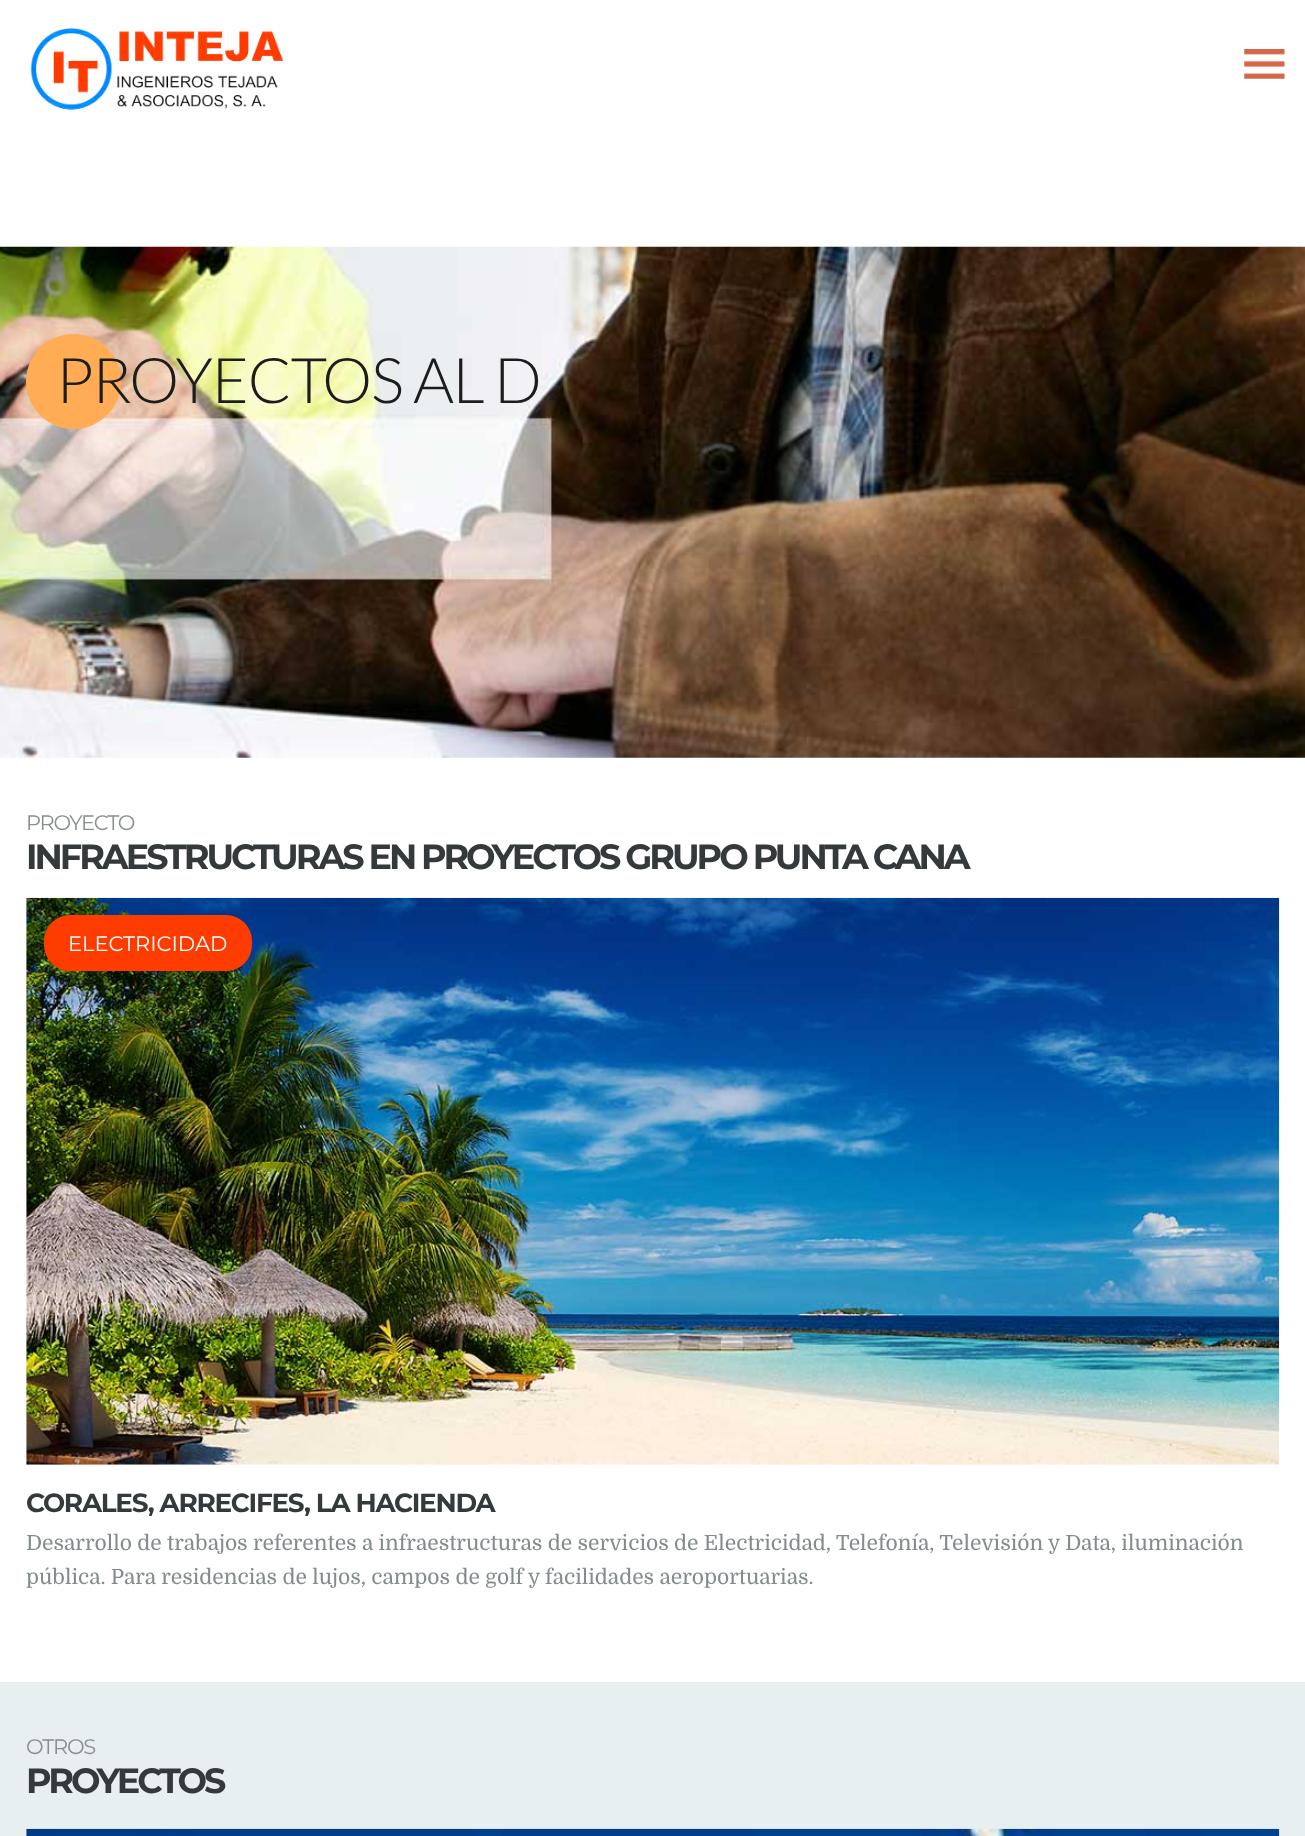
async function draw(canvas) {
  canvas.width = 1305;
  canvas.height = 1836;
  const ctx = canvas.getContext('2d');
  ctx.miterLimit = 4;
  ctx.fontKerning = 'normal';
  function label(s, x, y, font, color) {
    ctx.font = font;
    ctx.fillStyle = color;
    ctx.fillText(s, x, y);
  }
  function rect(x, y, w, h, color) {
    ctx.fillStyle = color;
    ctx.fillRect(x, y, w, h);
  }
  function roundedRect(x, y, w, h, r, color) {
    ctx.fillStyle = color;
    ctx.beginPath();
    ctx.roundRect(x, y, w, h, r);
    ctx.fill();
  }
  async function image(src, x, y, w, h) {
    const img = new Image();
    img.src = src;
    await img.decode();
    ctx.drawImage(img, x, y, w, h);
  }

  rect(0, 0, 1305, 1836, '#fff');
  await image('assets/img1.png', 30, 28, 254, 82);
  await image('assets/img2.png', 1244, 49, 41, 30);
  await image('assets/img3.png', 0, 246, 1305, 512);
  ctx.fillStyle = '#ffac55';
  ctx.beginPath();
  ctx.arc(73.5, 381.5, 47.5, 0, 2 * Math.PI);
  ctx.fill();
  ctx.letterSpacing = '-1.4px';
  label('PROYECTOS AL D', 56, 403, '300 63px Lato', '#1c1c1c');
  ctx.letterSpacing = '-1.25px';
  label('PROYECTO', 26, 830, '21px Montserrat', '#898e8f');
  ctx.letterSpacing = '-3px';
  label('INFRAESTRUCTURAS EN PROYECTOS GRUPO PUNTA CANA', 26, 869, 'bold 35px Montserrat', '#343a3b');
  await image('assets/img4.png', 26, 897, 1254, 568);
  roundedRect(44, 915, 208, 56, 26, '#ff3c00');
  ctx.letterSpacing = '0px';
  label('ELECTRICIDAD', 68, 951, '21px Montserrat', '#fff');
  ctx.letterSpacing = '-1.25px';
  label('CORALES, ARRECIFES, LA HACIENDA', 26, 1512, 'bold 26.25px Montserrat', '#343a3b');
  ctx.letterSpacing = '0px';
  label('Desarrollo de trabajos referentes a infraestructuras de servicios de Electricidad, Telefonía, Televisión y Data, iluminación', 26, 1550, '21px Domine', '#838b8c');
  label('pública. Para residencias de lujos, campos de golf y facilidades aeroportuarias.', 26, 1584, '21px Domine', '#838b8c');
  rect(0, 1682, 1305, 154, '#e7eff1');
  ctx.letterSpacing = '-1.25px';
  label('OTROS', 26, 1754, '21px Montserrat', '#898e8f');
  ctx.letterSpacing = '-3px';
  label('PROYECTOS', 26, 1793, 'bold 35px Montserrat', '#343a3b');
  await image('assets/img5.png', 26, 1828, 1254, 8);
}

draw(document.querySelector('canvas'));
